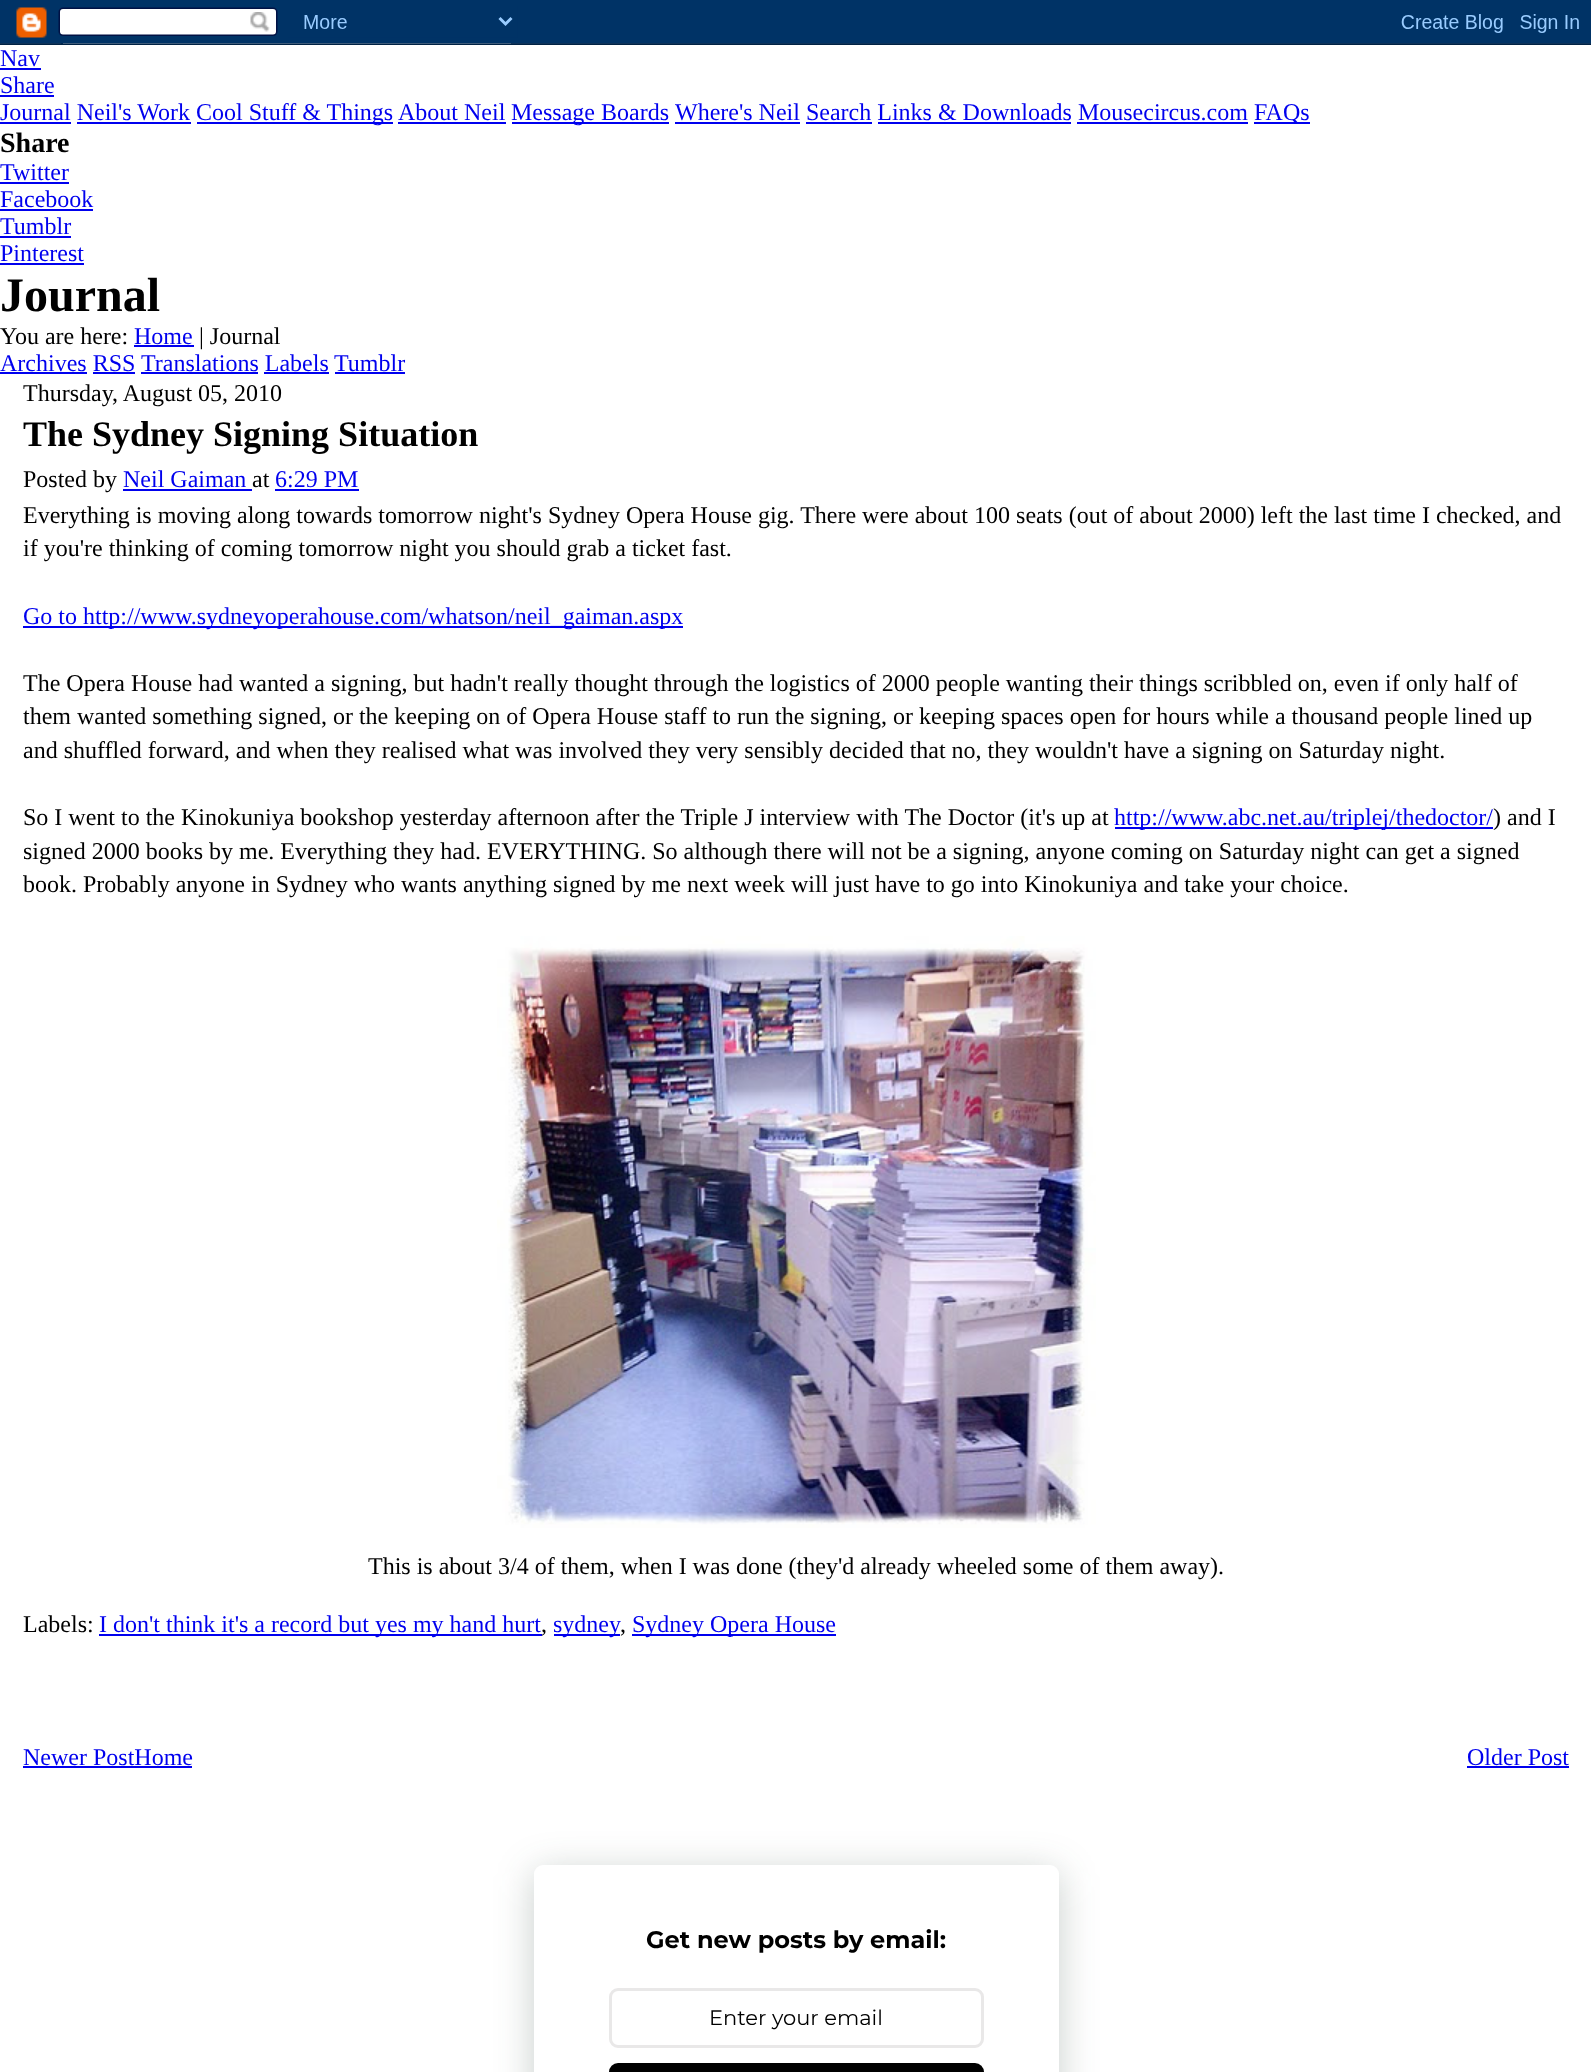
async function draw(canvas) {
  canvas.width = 1591;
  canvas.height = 2072;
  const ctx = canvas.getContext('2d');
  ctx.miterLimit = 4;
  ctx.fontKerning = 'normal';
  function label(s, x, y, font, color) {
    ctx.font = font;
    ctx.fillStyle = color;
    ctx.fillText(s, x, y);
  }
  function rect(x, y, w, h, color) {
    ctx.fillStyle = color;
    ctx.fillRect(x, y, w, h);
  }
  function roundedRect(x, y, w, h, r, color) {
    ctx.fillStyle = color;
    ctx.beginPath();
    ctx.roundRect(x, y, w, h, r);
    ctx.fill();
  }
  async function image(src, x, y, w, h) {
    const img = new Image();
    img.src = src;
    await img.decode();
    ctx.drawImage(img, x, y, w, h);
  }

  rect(0, 0, 1591, 2072, '#fff');
  await image('assets/img1.png', 0, 0, 1591, 45);
  label('Nav', 0, 66, '24px Liberation Serif', '#00e');
  rect(0, 68, 41, 2, '#00e');
  label('Share', 0, 93, '24px Liberation Serif', '#00e');
  rect(0, 95, 54, 2, '#00e');
  label('Journal Neil\'s Work', 0, 120, '24px Liberation Serif', '#00e');
  rect(0, 122, 71, 2, '#00e');
  rect(197, 122, 196, 2, '#00e');
  label('Cool Stuff & Things', 196, 120, '24px Liberation Serif', '#00e');
  label('About Neil', 398, 120, '24px Liberation Serif', '#00e');
  rect(398, 122, 108, 2, '#00e');
  rect(512, 122, 157, 2, '#00e');
  label('Message Boards', 511, 120, '24px Liberation Serif', '#00e');
  label('Where\'s Neil Search Links & Downloads Mousecircus.com', 675, 120, '24px Liberation Serif', '#00e');
  rect(675, 122, 125, 2, '#00e');
  rect(1254, 122, 56, 2, '#00e');
  label('FAQs', 1254, 120, '24px Liberation Serif', '#00e');
  rect(77, 122, 114, 2, '#00e');
  rect(806, 122, 66, 2, '#00e');
  rect(878, 122, 193, 2, '#00e');
  rect(1077, 122, 171, 2, '#00e');
  label('Share', 0, 152, 'bold 28px Liberation Serif', '#000');
  label('Twitter', 0, 180, '24px Liberation Serif', '#00e');
  rect(0, 182, 69, 2, '#00e');
  label('Facebook', 0, 207, '24px Liberation Serif', '#00e');
  rect(0, 209, 93, 2, '#00e');
  label('Tumblr', 0, 234, '24px Liberation Serif', '#00e');
  rect(0, 236, 71, 2, '#00e');
  label('Pinterest', 0, 261, '24px Liberation Serif', '#00e');
  rect(0, 263, 84, 2, '#00e');
  label('Journal', 0, 311, 'bold 48px Liberation Serif', '#000');
  label('You are here:', 0, 344, '24px Liberation Serif', '#000');
  label('Home', 134, 344, '24px Liberation Serif', '#00e');
  rect(134, 345, 60, 2, '#00e');
  label('| Journal', 199, 344, '24px Liberation Serif', '#000');
  label('Archives RSS', 0, 371, '24px Liberation Serif', '#00e');
  rect(0, 372, 87, 2, '#00e');
  label('Translations Labels', 141, 371, '24px Liberation Serif', '#00e');
  rect(141, 372, 117, 2, '#00e');
  label('Tumblr', 334, 371, '24px Liberation Serif', '#00e');
  rect(335, 372, 70, 2, '#00e');
  rect(93, 372, 42, 2, '#00e');
  rect(264, 372, 65, 2, '#00e');
  label('Thursday, August 05, 2010', 23, 401, '24px Liberation Serif', '#000');
  label('The Sydney Signing Situation', 23, 446, 'bold 36px Liberation Serif', '#000');
  label('Posted by', 23, 487, '24px Liberation Serif', '#000');
  label('Neil Gaiman', 123, 487, '24px Liberation Serif', '#00e');
  rect(123, 489, 129, 2, '#00e');
  label('at', 252, 487, '24px Liberation Serif', '#000');
  label('6:29 PM', 275, 487, '24px Liberation Serif', '#00e');
  rect(275, 489, 84, 2, '#00e');
  label('Everything is moving along towards tomorrow night\'s Sydney Opera House gig. There were about 100 seats (out of about 2000) left the last time I checked, and', 23, 523, '24px Liberation Serif', '#000');
  label('if you\'re thinking of coming tomorrow night you should grab a ticket fast.', 23, 556, '24px Liberation Serif', '#000');
  rect(23, 626, 660, 2, '#00e');
  label('Go to http://www.sydneyoperahouse.com/whatson/neil_gaiman.aspx', 23, 624, '24px Liberation Serif', '#00e');
  label('The Opera House had wanted a signing, but hadn\'t really thought through the logistics of 2000 people wanting their things scribbled on, even if only half of', 23, 691, '24px Liberation Serif', '#000');
  label('them wanted something signed, or the keeping on of Opera House staff to run the signing, or keeping spaces open for hours while a thousand people lined up', 23, 724, '24px Liberation Serif', '#000');
  label('and shuffled forward, and when they realised what was involved they very sensibly decided that no, they wouldn\'t have a signing on Saturday night.', 23, 758, '24px Liberation Serif', '#000');
  label('So I went to the Kinokuniya bookshop yesterday afternoon after the Triple J interview with The Doctor (it\'s up at', 23, 825, '24px Liberation Serif', '#000');
  rect(1115, 827, 378, 2, '#00e');
  label('http://www.abc.net.au/triplej/thedoctor/', 1114, 825, '24px Liberation Serif', '#00e');
  label(') and I', 1493, 825, '24px Liberation Serif', '#000');
  label('signed 2000 books by me. Everything they had. EVERYTHING. So although there will not be a signing, anyone coming on Saturday night can get a signed', 23, 859, '24px Liberation Serif', '#000');
  label('book. Probably anyone in Sydney who wants anything signed by me next week will just have to go into Kinokuniya and take your choice.', 23, 892, '24px Liberation Serif', '#000');
  await image('assets/img2.png', 497, 936, 599, 592);
  label('This is about 3/4 of them, when I was done (they\'d already wheeled some of them away).', 368, 1574, '24px Liberation Serif', '#000');
  label('Labels:', 23, 1632, '24px Liberation Serif', '#000');
  rect(99, 1634, 443, 2, '#00e');
  label('I don\'t think it\'s a record but yes my hand hurt', 99, 1632, '24px Liberation Serif', '#00e');
  label(',', 541, 1632, '24px Liberation Serif', '#000');
  rect(554, 1634, 66, 2, '#00e');
  label('sydney', 553, 1632, '24px Liberation Serif', '#00e');
  label(',', 620, 1632, '24px Liberation Serif', '#000');
  rect(632, 1634, 204, 2, '#00e');
  label('Sydney Opera House', 632, 1632, '24px Liberation Serif', '#00e');
  label('Newer PostHome', 23, 1765, '24px Liberation Serif', '#00e');
  rect(23, 1766, 169, 2, '#00e');
  label('Older Post', 1467, 1765, '24px Liberation Serif', '#00e');
  rect(1467, 1766, 102, 2, '#00e');
  ctx.fillStyle = '#223c2f40';
  ctx.filter = 'blur(19px)';
  ctx.beginPath();
  ctx.roundRect(534, 1872, 525, 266, 9);
  ctx.fill();
  ctx.filter = 'none';
  roundedRect(534, 1865, 525, 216, 9, '#fff');
  label('Get new posts by email:', 646, 1948, '100 24px Montserrat', '#000');
  ctx.beginPath();
  ctx.roundRect(610.5, 1989.5, 372, 57, 7.5);
  ctx.strokeStyle = '#e9e8e8';
  ctx.lineWidth = 3;
  ctx.stroke();
  label('Enter your email', 709, 2025, '100 21px "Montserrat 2"', '#000');
  roundedRect(609, 2063, 375, 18, 9, '#000');
}

draw(document.querySelector('canvas'));
